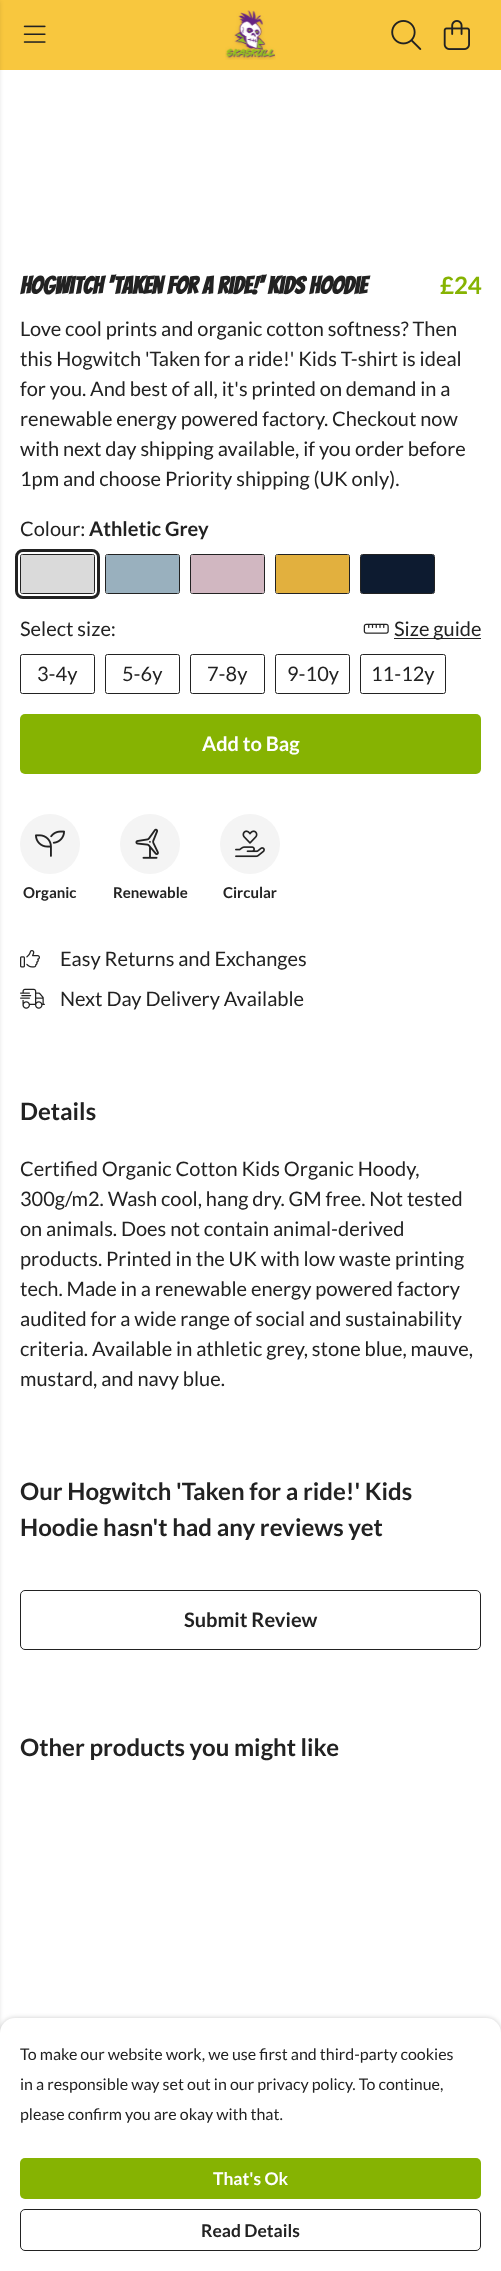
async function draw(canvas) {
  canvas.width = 501;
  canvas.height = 2271;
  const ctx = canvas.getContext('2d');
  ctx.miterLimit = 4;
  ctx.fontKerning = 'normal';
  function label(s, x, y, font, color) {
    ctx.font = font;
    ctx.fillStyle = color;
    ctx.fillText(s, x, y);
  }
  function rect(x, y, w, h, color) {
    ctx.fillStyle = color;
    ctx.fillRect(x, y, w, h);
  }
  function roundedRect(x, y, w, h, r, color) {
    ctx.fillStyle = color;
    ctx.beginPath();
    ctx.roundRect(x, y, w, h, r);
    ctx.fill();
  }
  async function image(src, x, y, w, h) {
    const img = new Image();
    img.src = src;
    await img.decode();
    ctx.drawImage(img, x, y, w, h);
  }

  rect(0, 0, 501, 2271, '#fff');
  rect(0, 0, 501, 70, '#f8c73e');
  await image('assets/img1.png', 23, 25, 23, 18);
  await image('assets/img2.png', 225, 10, 51, 50);
  await image('assets/img3.png', 391, 20, 31, 30);
  await image('assets/img4.png', 443, 20, 27, 30);
  ctx.fillStyle = '#0000001a';
  ctx.filter = 'blur(2px)';
  ctx.beginPath();
  ctx.rect(-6, 1, 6, 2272);
  ctx.fill();
  ctx.filter = 'none';
  label('Hogwitch \'Taken for a ride!\' Kids Hoodie', 20, 294, 'bold 24px Bangers', '#222');
  label('£24', 440, 294, 'bold 24px Lato', '#86b302');
  label('Love cool prints and organic cotton softness? Then', 20, 336, '20px Lato', '#222');
  label('this Hogwitch \'Taken for a ride!\' Kids T-shirt is ideal', 20, 366, '20px Lato', '#222');
  label('for you. And best of all, it\'s printed on demand in a', 20, 396, '20px Lato', '#222');
  label('renewable energy powered factory. Checkout now', 20, 426, '20px Lato', '#222');
  label('with next day shipping available, if you order before', 20, 456, '20px Lato', '#222');
  label('1pm and choose Priority shipping (UK only).', 20, 486, '20px Lato', '#222');
  label('Colour:', 20, 536, '20px Lato', '#222');
  label('Athletic Grey', 89, 536, 'bold 20px Lato', '#222');
  ctx.beginPath();
  ctx.roundRect(16.5, 550.5, 82, 47, 6.5);
  ctx.strokeStyle = '#222';
  ctx.lineWidth = 3;
  ctx.stroke();
  ctx.beginPath();
  ctx.roundRect(20.5, 554.5, 74, 39, 2);
  ctx.lineWidth = 1;
  ctx.stroke();
  roundedRect(21, 555, 73, 38, 1, '#dadada');
  ctx.beginPath();
  ctx.roundRect(105.5, 554.5, 74, 39, 2);
  ctx.stroke();
  roundedRect(106, 555, 73, 38, 1, '#99b0be');
  ctx.beginPath();
  ctx.roundRect(190.5, 554.5, 74, 39, 2);
  ctx.stroke();
  roundedRect(191, 555, 73, 38, 1, '#d1b7c1');
  ctx.beginPath();
  ctx.roundRect(275.5, 554.5, 74, 39, 2);
  ctx.stroke();
  roundedRect(276, 555, 73, 38, 1, '#e2b03e');
  ctx.beginPath();
  ctx.roundRect(360.5, 554.5, 74, 39, 2);
  ctx.stroke();
  roundedRect(361, 555, 73, 38, 1, '#0d1b30');
  label('Select size:', 20, 636, '20px Lato', '#222');
  await image('assets/img5.png', 363, 623, 26, 11);
  rect(394, 638, 87, 1, '#222');
  label('Size guide', 394, 636, '20px Lato', '#222');
  ctx.beginPath();
  ctx.roundRect(20.5, 654.5, 74, 39, 2);
  ctx.stroke();
  label('3-4y', 37, 681, '20px Lato', '#222');
  ctx.beginPath();
  ctx.roundRect(105.5, 654.5, 74, 39, 2);
  ctx.stroke();
  label('5-6y', 122, 681, '20px Lato', '#222');
  ctx.beginPath();
  ctx.roundRect(190.5, 654.5, 74, 39, 2);
  ctx.stroke();
  label('7-8y', 207, 681, '20px Lato', '#222');
  ctx.beginPath();
  ctx.roundRect(275.5, 654.5, 74, 39, 2);
  ctx.stroke();
  label('9-10y', 287, 681, '20px Lato', '#222');
  ctx.beginPath();
  ctx.roundRect(360.5, 654.5, 85, 39, 2);
  ctx.stroke();
  label('11-12y', 371, 681, '20px Lato', '#222');
  roundedRect(20, 714, 461, 60, 5, '#86b302');
  label('Add to Bag', 202, 751, 'bold 20px Lato', '#fff');
  ctx.fillStyle = '#f4f4f4';
  ctx.beginPath();
  ctx.arc(50, 844, 30, 0, 2 * Math.PI);
  ctx.fill();
  await image('assets/img6.png', 35, 830, 30, 27);
  label('Organic', 23, 898, 'bold 15px Lato', '#222');
  ctx.fillStyle = '#f4f4f4';
  ctx.beginPath();
  ctx.arc(150, 844, 30, 0, 2 * Math.PI);
  ctx.fill();
  await image('assets/img7.png', 135, 828, 24, 31);
  label('Renewable', 113, 898, 'bold 15px Lato', '#222');
  ctx.fillStyle = '#f4f4f4';
  ctx.beginPath();
  ctx.arc(250, 844, 30, 0, 2 * Math.PI);
  ctx.fill();
  await image('assets/img8.png', 235, 830, 30, 28);
  label('Circular', 223, 898, 'bold 15px Lato', '#222');
  await image('assets/img9.png', 20, 950, 20, 18);
  label('Easy Returns and Exchanges', 60, 966, '20px Lato', '#222');
  await image('assets/img10.png', 20, 988, 25, 21);
  label('Next Day Delivery Available', 60, 1006, '20px Lato', '#222');
  label('Details', 20, 1120, 'bold 24px Lato', '#222');
  label('Certified Organic Cotton Kids Organic Hoody,', 20, 1176, '20px Lato', '#222');
  label('300g/m2. Wash cool, hang dry. GM free. Not tested', 20, 1206, '20px Lato', '#222');
  label('on animals. Does not contain animal-derived', 20, 1236, '20px Lato', '#222');
  label('products. Printed in the UK with low waste printing', 20, 1266, '20px Lato', '#222');
  label('tech. Made in a renewable energy powered factory', 20, 1296, '20px Lato', '#222');
  label('audited for a wide range of social and sustainability', 20, 1326, '20px Lato', '#222');
  label('criteria. Available in athletic grey, stone blue, mauve,', 20, 1356, '20px Lato', '#222');
  label('mustard, and navy blue.', 20, 1386, '20px Lato', '#222');
  label('Our Hogwitch \'Taken for a ride!\' Kids', 20, 1500, 'bold 24px Lato', '#222');
  label('Hoodie hasn\'t had any reviews yet', 20, 1536, 'bold 24px Lato', '#222');
  ctx.beginPath();
  ctx.roundRect(20.5, 1590.5, 460, 59, 4.5);
  ctx.stroke();
  label('Submit Review', 184, 1627, 'bold 20px Lato', '#222');
  label('Other products you might like', 20, 1756, 'bold 24px Lato', '#222');
  ctx.fillStyle = '#00000033';
  ctx.filter = 'blur(2.5px)';
  ctx.beginPath();
  ctx.roundRect(0, 2018, 501, 253, 15);
  ctx.fill();
  ctx.filter = 'none';
  ctx.fillStyle = '#fff';
  ctx.beginPath();
  ctx.roundRect(0, 2018, 501, 253, [15, 15, 0, 0]);
  ctx.fill();
  label('To make our website work, we use first and third-party cookies', 20, 2060, '16px Lato', '#222');
  label('in a responsible way set out in our privacy policy. To continue,', 20, 2090, '16px Lato', '#222');
  label('please confirm you are okay with that.', 20, 2120, '16px Lato', '#222');
  roundedRect(20, 2158, 461, 41, 5, '#86b302');
  label('That\'s Ok', 213, 2185, 'bold 17.5px Lato', '#fff');
  ctx.beginPath();
  ctx.roundRect(20.5, 2209.5, 460, 41, 4.5);
  ctx.stroke();
  label('Read Details', 201, 2237, 'bold 17.5px Lato', '#222');
}

draw(document.querySelector('canvas'));
